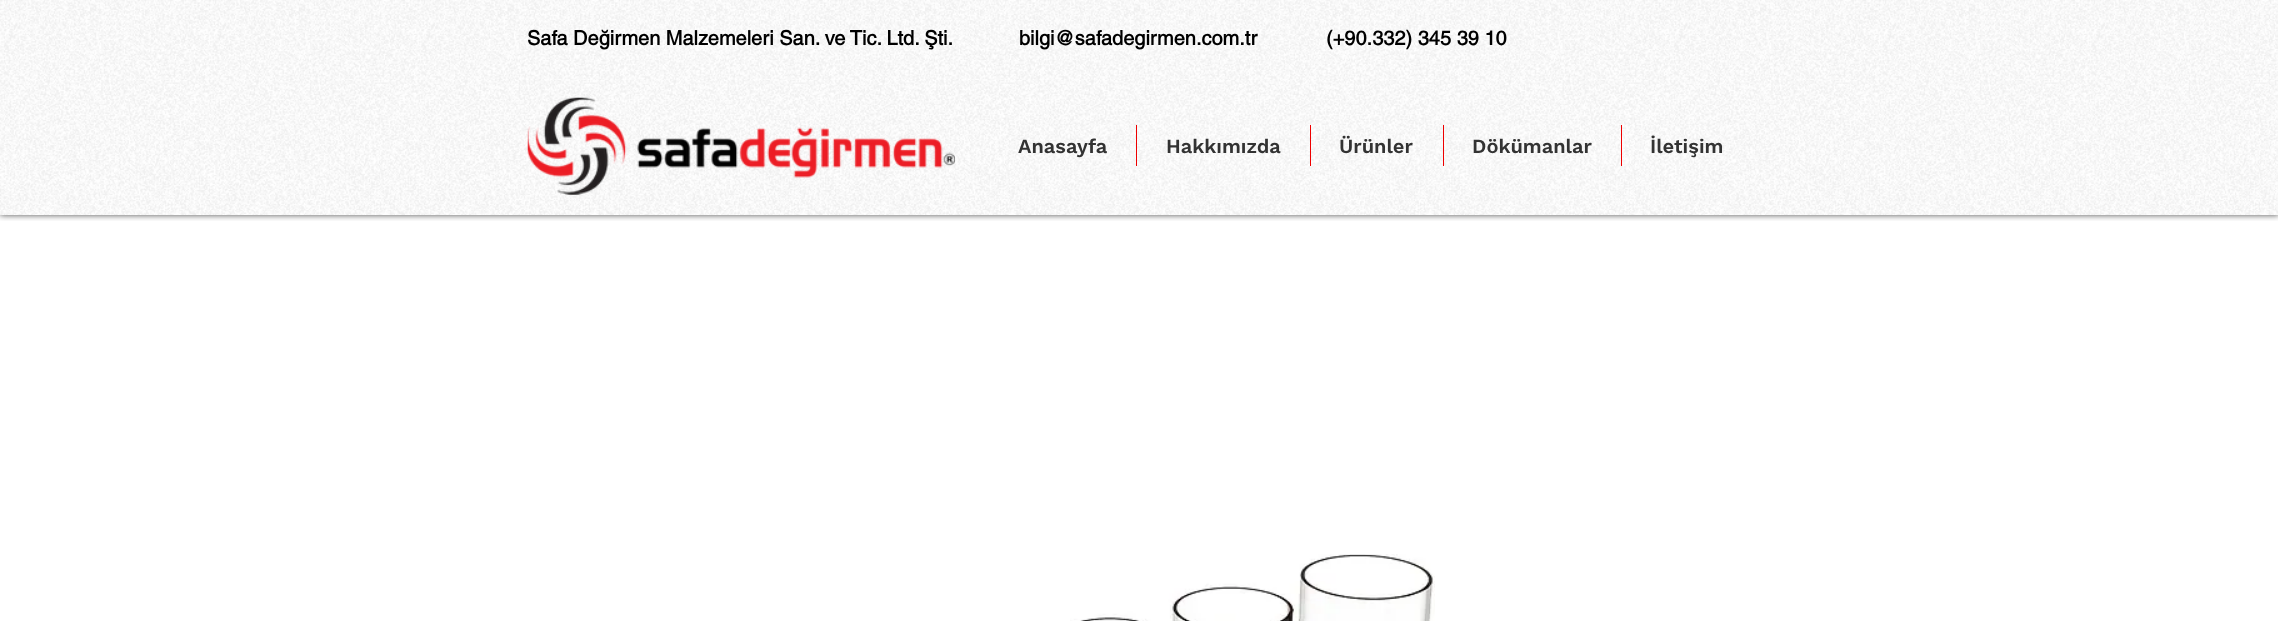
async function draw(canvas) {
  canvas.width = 2278;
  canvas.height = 621;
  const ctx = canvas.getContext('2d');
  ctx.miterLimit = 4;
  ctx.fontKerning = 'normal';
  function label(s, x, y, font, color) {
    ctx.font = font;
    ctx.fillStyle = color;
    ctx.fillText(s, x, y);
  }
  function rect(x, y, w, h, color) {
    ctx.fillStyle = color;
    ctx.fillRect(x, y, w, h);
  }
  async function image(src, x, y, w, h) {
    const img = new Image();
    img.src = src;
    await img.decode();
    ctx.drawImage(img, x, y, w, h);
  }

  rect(0, 0, 2278, 621, '#fff');
  ctx.save();
  ctx.beginPath();
  ctx.rect(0, 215, 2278, 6);
  ctx.clip();
  ctx.fillStyle = '#000000b3';
  ctx.filter = 'blur(3px)';
  ctx.beginPath();
  ctx.rect(0, 0, 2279, 215);
  ctx.fill();
  ctx.filter = 'none';
  ctx.restore();
  await image('assets/img1.png', 0, 0, 2278, 215);
  label('Safa Değirmen Malzemeleri San. ve Tic. Ltd. Şti.', 527, 45, 'bold 20px helvetica', '#000');
  label('bilgi@safadegirmen.com.tr', 1019, 45, 'bold 20px helvetica', '#000');
  label('(+90.332) 345 39 10', 1326, 45, 'bold 20px helvetica', '#000');
  await image('assets/img2.png', 527, 97, 428, 98);
  label('Anasayfa', 1018, 153, '600 20px Work Sans', '#333');
  rect(1136, 125, 1, 41, '#e00');
  label('Hakkımızda', 1166, 153, '600 20px Work Sans', '#333');
  rect(1310, 125, 1, 41, '#e00');
  label('Ürünler', 1339, 153, '600 20px Work Sans', '#333');
  rect(1443, 125, 1, 41, '#e00');
  label('Dökümanlar', 1472, 153, '600 20px Work Sans', '#333');
  rect(1621, 125, 1, 41, '#e00');
  label('İletişim', 1650, 153, '600 20px Work Sans', '#333');
  await image('assets/img3.png', 1070, 554, 365, 67);
}

draw(document.querySelector('canvas'));
